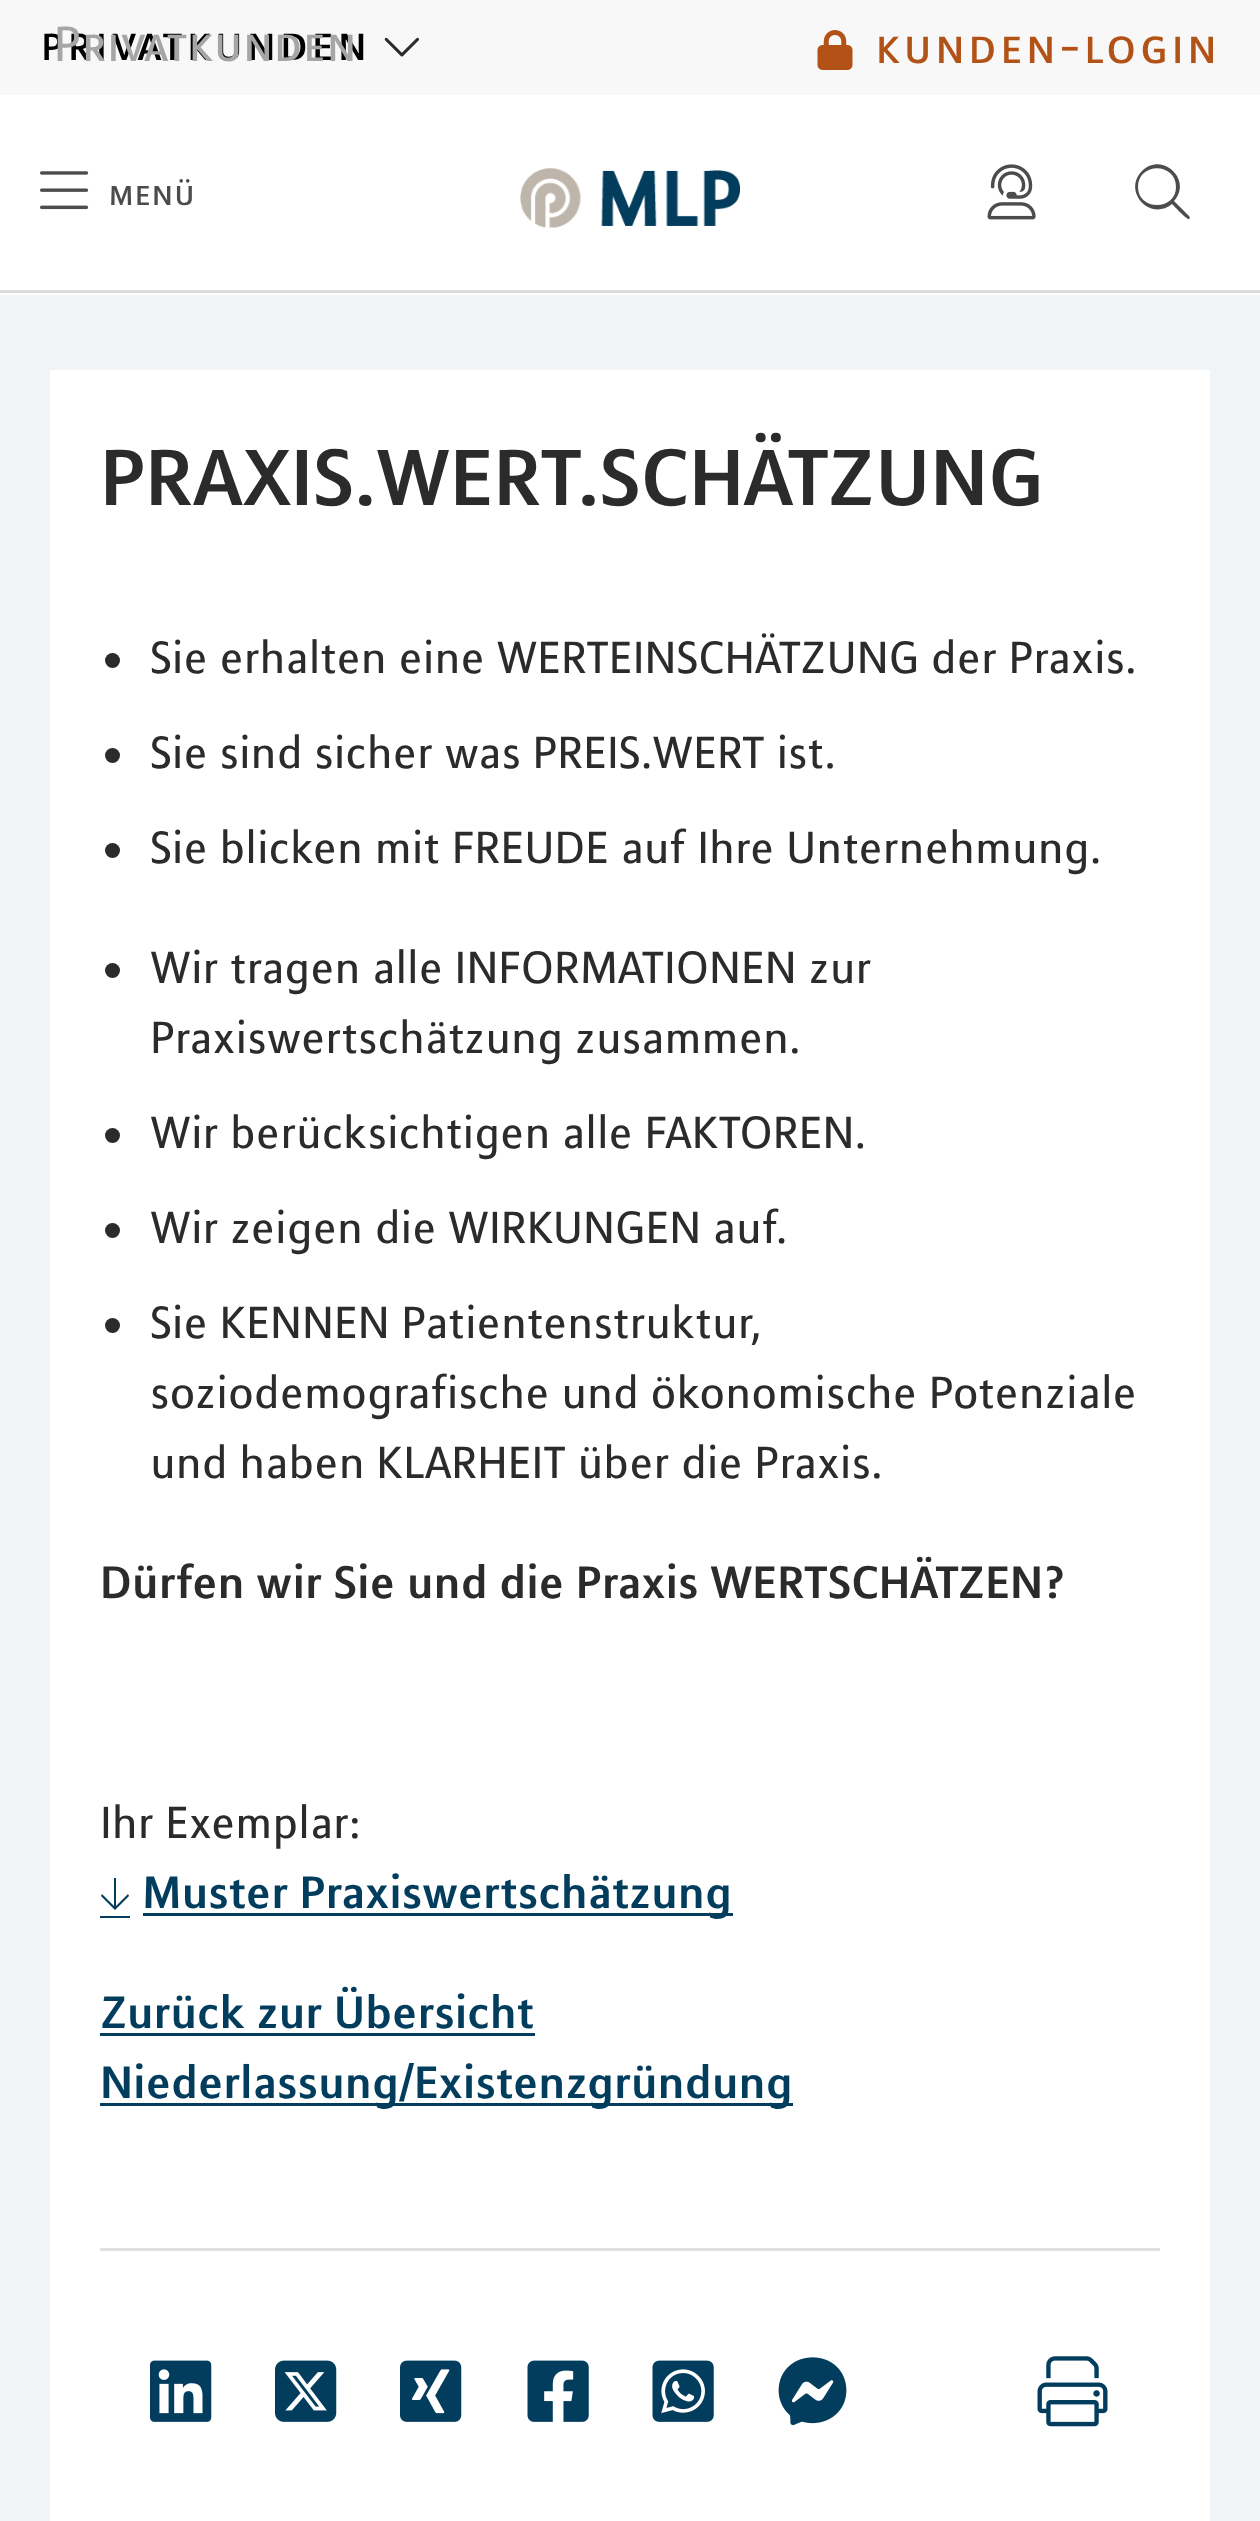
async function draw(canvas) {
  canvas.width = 1260;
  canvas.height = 2521;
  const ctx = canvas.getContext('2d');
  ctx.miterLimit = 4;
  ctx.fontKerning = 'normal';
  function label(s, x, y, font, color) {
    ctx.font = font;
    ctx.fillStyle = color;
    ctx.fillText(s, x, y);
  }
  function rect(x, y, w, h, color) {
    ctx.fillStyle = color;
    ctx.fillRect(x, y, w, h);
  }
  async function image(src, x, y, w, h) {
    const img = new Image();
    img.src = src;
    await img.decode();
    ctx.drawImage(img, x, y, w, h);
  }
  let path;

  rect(0, 0, 1260, 2521, '#fff');
  rect(0, 290, 1260, 3, '#dbdbdb');
  rect(0, 0, 1260, 95, '#f8f8f8');
  ctx.letterSpacing = '2.5px';
  label('privatkunden', 40, 60, '55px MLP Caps', '#000');
  ctx.letterSpacing = '0px';
  label('Privatkunden', 53, 61, '55px MLP Caps', '#a6a6a6');
  await image('assets/img1.png', 384, 37, 35, 20);
  await image('assets/img2.png', 817, 30, 36, 40);
  ctx.letterSpacing = '2.5px';
  label('kunden-login', 875, 63, '55px MLP Caps', '#b25217');
  await image('assets/img3.png', 40, 171, 49, 39);
  ctx.letterSpacing = '0px';
  label('menü', 108, 205, '40px MLP Caps', '#4c4c4c');
  await image('assets/img4.png', 987, 164, 49, 56);
  path = new Path2D('M1176 187C1176 162 1138 162 1138 187C1138 211 1176 211 1176 187ZM1172 204C1150 222 1122 191 1142 171C1162 151 1193 180 1174 201L1189 216C1190 217 1190 219 1189 219C1187 220 1174 206 1172 204Z');
  ctx.fill(path);
  await image('assets/img5.png', 520, 168, 220, 60);
  rect(0, 295, 1260, 2226, '#f1f4f6');
  rect(50, 370, 1160, 2151, '#fff');
  label('PRAXIS.WERT.SCHÄTZUNG', 100, 505, 'bold 87.5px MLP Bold', '#2b2b2b');
  ctx.beginPath();
  ctx.arc(112.5, 660.5, 7.5, 0, 2 * Math.PI);
  ctx.fill();
  label('Sie erhalten eine WERTEINSCHÄTZUNG der Praxis.', 150, 673, '50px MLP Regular', '#2b2b2b');
  ctx.beginPath();
  ctx.arc(112.5, 755.5, 7.5, 0, 2 * Math.PI);
  ctx.fill();
  label('Sie sind sicher was PREIS.WERT ist.', 150, 768, '50px MLP Regular', '#2b2b2b');
  ctx.beginPath();
  ctx.arc(112.5, 850.5, 7.5, 0, 2 * Math.PI);
  ctx.fill();
  label('Sie blicken mit FREUDE auf Ihre Unternehmung.', 150, 863, '50px MLP Regular', '#2b2b2b');
  ctx.beginPath();
  ctx.arc(112.5, 970.5, 7.5, 0, 2 * Math.PI);
  ctx.fill();
  label('Wir tragen alle INFORMATIONEN zur', 150, 983, '50px MLP Regular', '#2b2b2b');
  label('Praxiswertschätzung zusammen.', 150, 1053, '50px MLP Regular', '#2b2b2b');
  ctx.beginPath();
  ctx.arc(112.5, 1135.5, 7.5, 0, 2 * Math.PI);
  ctx.fill();
  label('Wir berücksichtigen alle FAKTOREN.', 150, 1148, '50px MLP Regular', '#2b2b2b');
  ctx.beginPath();
  ctx.arc(112.5, 1230.5, 7.5, 0, 2 * Math.PI);
  ctx.fill();
  label('Wir zeigen die WIRKUNGEN auf.', 150, 1243, '50px MLP Regular', '#2b2b2b');
  ctx.beginPath();
  ctx.arc(112.5, 1325.5, 7.5, 0, 2 * Math.PI);
  ctx.fill();
  label('Sie KENNEN Patientenstruktur,', 150, 1338, '50px MLP Regular', '#2b2b2b');
  label('soziodemografische und ökonomische Potenziale', 150, 1408, '50px MLP Regular', '#2b2b2b');
  label('und haben KLARHEIT über die Praxis.', 150, 1478, '50px MLP Regular', '#2b2b2b');
  label('Dürfen wir Sie und die Praxis WERTSCHÄTZEN?', 100, 1598, 'bold 50px MLP Bold', '#2b2b2b');
  label('Ihr Exemplar:', 100, 1838, '50px MLP Regular', '#2b2b2b');
  ctx.fillStyle = '#033d5d';
  path = new Path2D('M128 1894L116 1906V1878H114V1906L102 1894L101 1896L115 1910L129 1896ZM100 1916H130V1918H100Z');
  ctx.fill(path);
  rect(143, 1913, 590, 3, '#033d5d');
  label('Muster Praxiswertschätzung', 142, 1908, 'bold 50px MLP Bold', '#033d5d');
  label('Zurück zur Übersicht', 100, 2028, 'bold 50px MLP Bold', '#033d5d');
  rect(100, 2033, 435, 3, '#033d5d');
  rect(100, 2103, 693, 3, '#033d5d');
  label('Niederlassung/Existenzgründung', 100, 2098, 'bold 50px MLP Bold', '#033d5d');
  rect(100, 2248, 1060, 3, '#dedfe0');
  await image('assets/img6.png', 150, 2360, 62, 62);
  await image('assets/img7.png', 275, 2360, 62, 62);
  await image('assets/img8.png', 400, 2360, 62, 62);
  await image('assets/img9.png', 527, 2360, 62, 62);
  await image('assets/img10.png', 652, 2360, 62, 62);
  await image('assets/img11.png', 778, 2357, 69, 69);
  await image('assets/img12.png', 1037, 2356, 71, 71);
}

draw(document.querySelector('canvas'));
